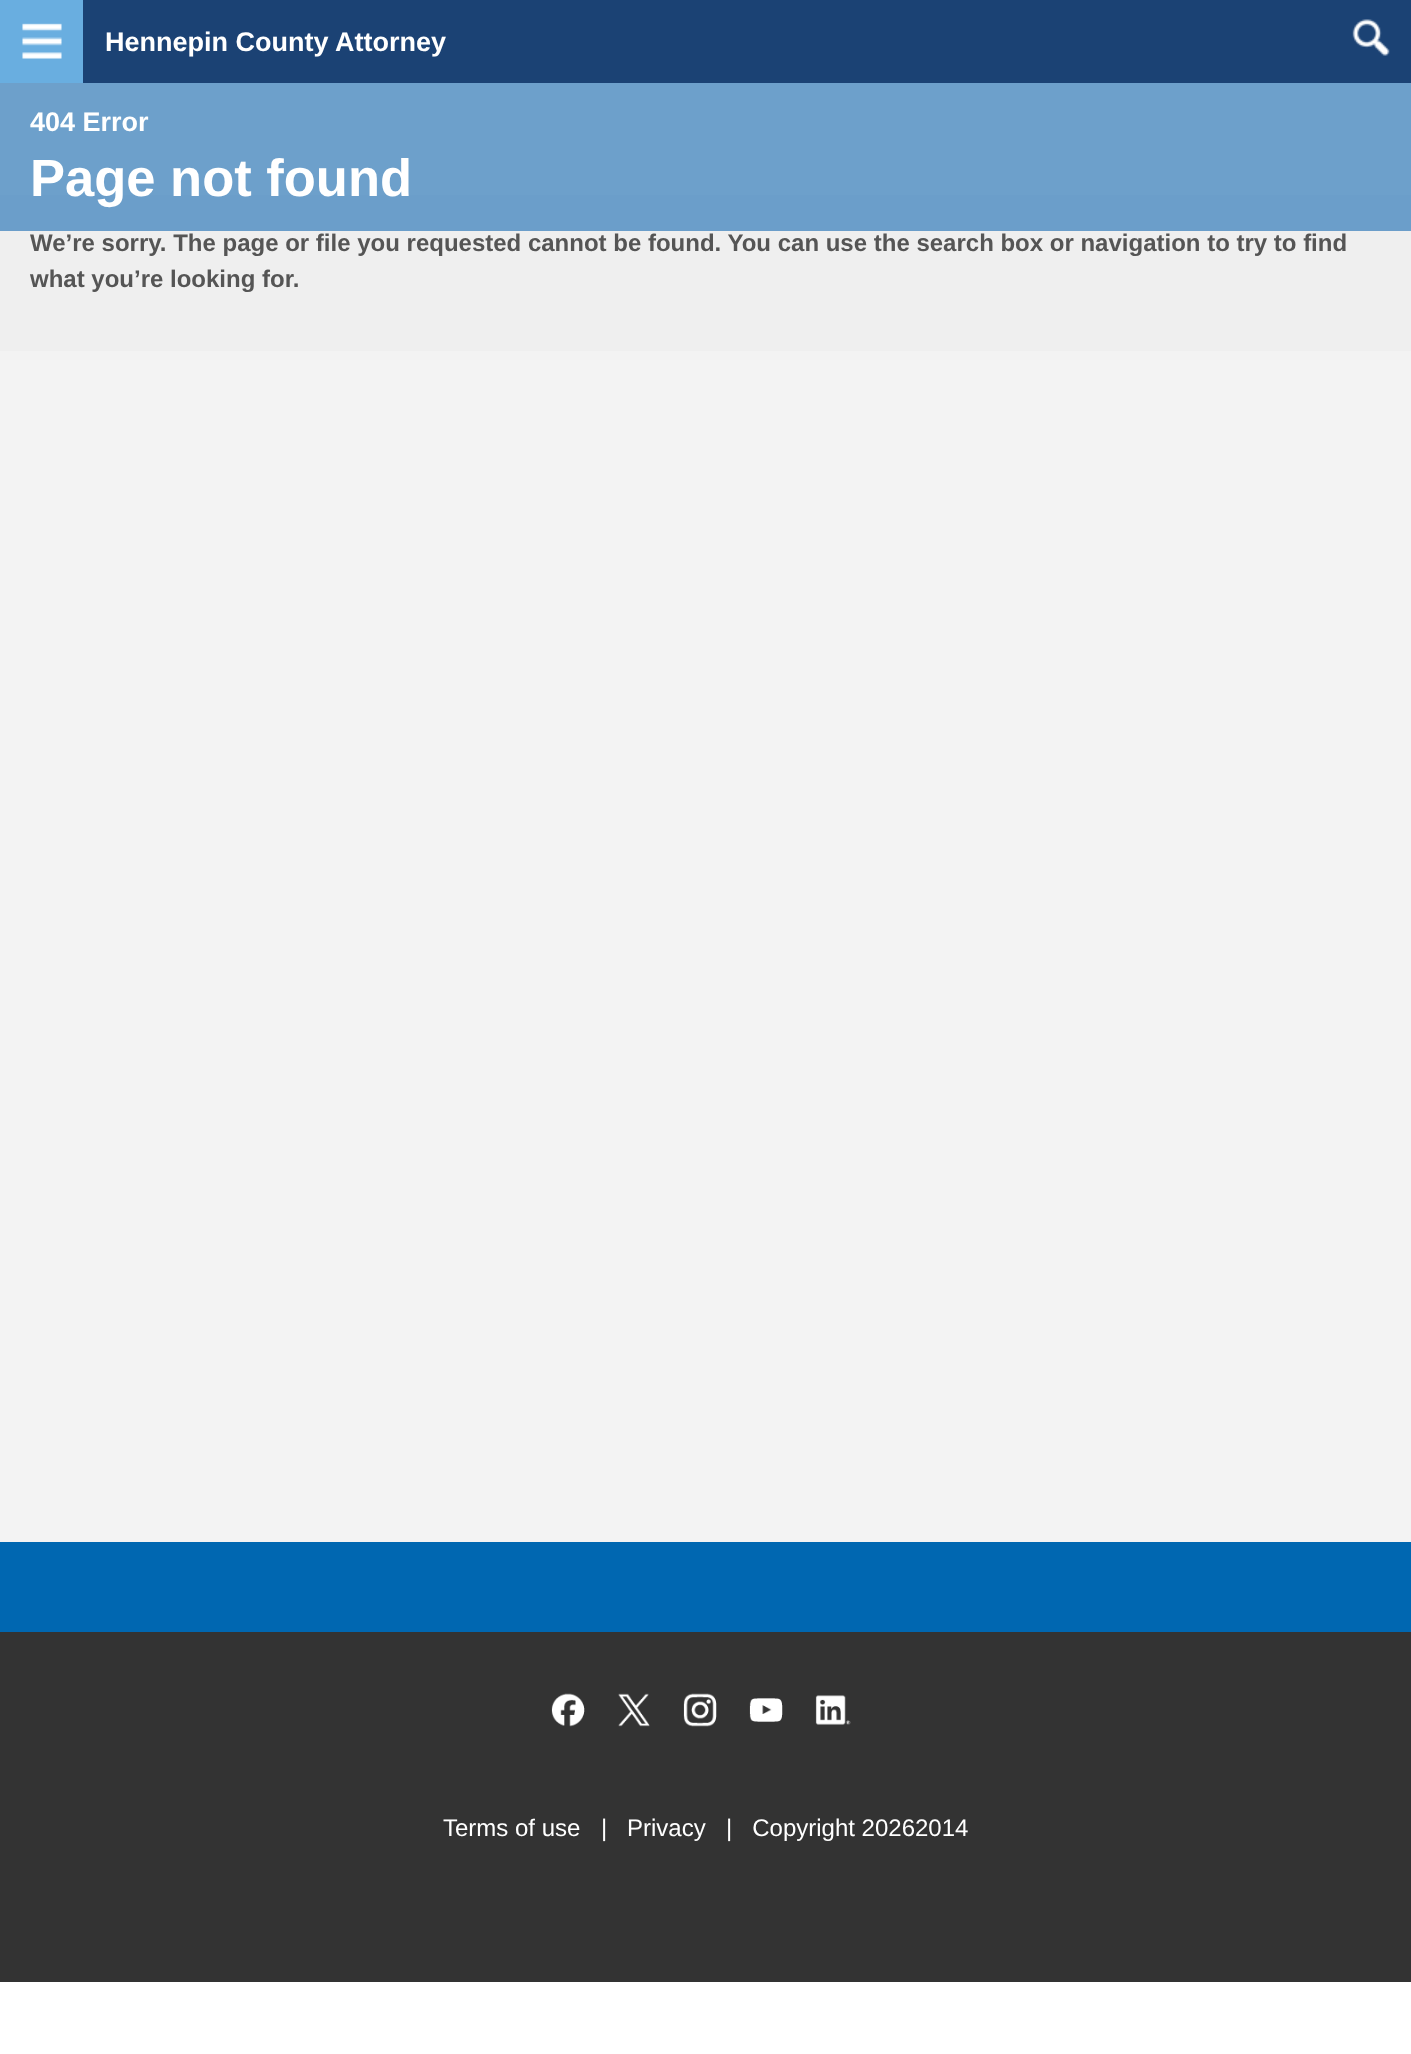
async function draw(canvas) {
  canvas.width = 1411;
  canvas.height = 2054;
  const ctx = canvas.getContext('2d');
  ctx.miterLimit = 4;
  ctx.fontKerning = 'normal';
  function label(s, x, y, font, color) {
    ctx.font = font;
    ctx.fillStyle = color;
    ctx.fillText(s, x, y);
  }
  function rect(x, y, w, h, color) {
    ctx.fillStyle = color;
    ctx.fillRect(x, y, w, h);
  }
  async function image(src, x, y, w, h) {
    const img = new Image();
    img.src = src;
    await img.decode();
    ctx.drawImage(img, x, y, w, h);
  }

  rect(0, 0, 1411, 2054, '#fff');
  rect(0, 1542, 1411, 90, '#0067b1');
  rect(83, 0, 1328, 83, '#1b4274');
  rect(0, 0, 83, 83, '#69aee0');
  await image('assets/img1.png', 22, 23, 40, 36);
  label('Hennepin County Attorney', 105, 51, 'bold 27px Liberation Sans', '#fff');
  await image('assets/img2.png', 1352, 19, 38, 37);
  rect(0, 351, 1411, 1191, '#f3f3f3');
  rect(0, 83, 1411, 112, '#6da0cb');
  label('404 Error', 30, 131, 'bold 27px Liberation Sans', '#fff');
  rect(0, 195, 1411, 36, '#6b9eca');
  label('Page not found', 30, 196, 'bold 52.5px Liberation Sans', '#fff');
  rect(0, 231, 1411, 120, '#efefef');
  label('We’re sorry. The page or file you requested cannot be found. You can use the search box or navigation to try to find', 30, 251, 'bold 24px Liberation Sans', '#555');
  label('what you’re looking for.', 30, 287, 'bold 24px Liberation Sans', '#555');
  rect(0, 1632, 1411, 350, '#333');
  await image('assets/img3.png', 551, 1693, 34, 34);
  await image('assets/img4.png', 618, 1693, 32, 34);
  await image('assets/img5.png', 683, 1693, 34, 34);
  await image('assets/img6.png', 749, 1698, 34, 24);
  await image('assets/img7.png', 815, 1695, 36, 30);
  label('Terms of use', 443, 1836, '24px Liberation Sans', '#fff');
  label('|', 601, 1836, '24px Liberation Sans', '#fff');
  label('Privacy', 627, 1836, '24px Liberation Sans', '#fff');
  label('|   Copyright 20262014', 726, 1836, '24px Liberation Sans', '#fff');
}

draw(document.querySelector('canvas'));
